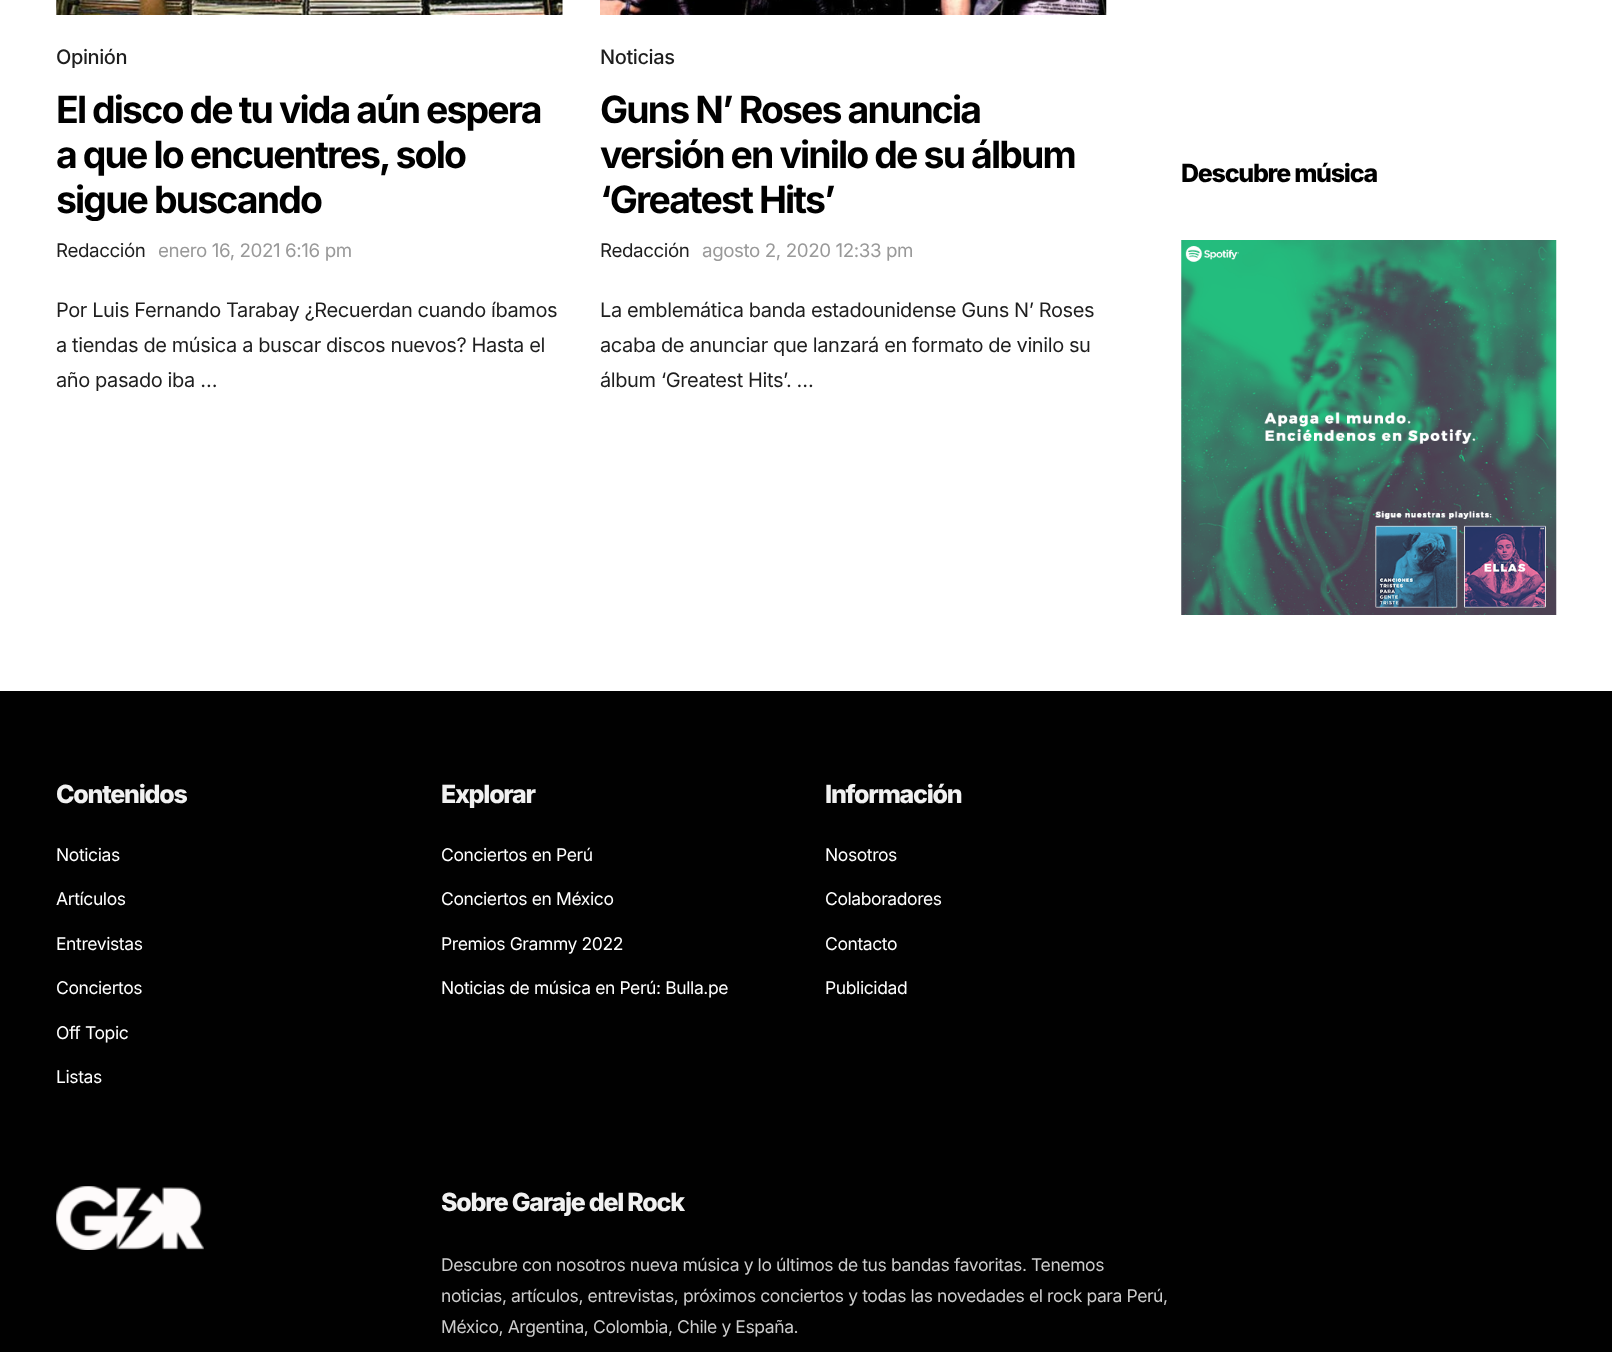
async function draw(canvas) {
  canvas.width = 1612;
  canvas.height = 1352;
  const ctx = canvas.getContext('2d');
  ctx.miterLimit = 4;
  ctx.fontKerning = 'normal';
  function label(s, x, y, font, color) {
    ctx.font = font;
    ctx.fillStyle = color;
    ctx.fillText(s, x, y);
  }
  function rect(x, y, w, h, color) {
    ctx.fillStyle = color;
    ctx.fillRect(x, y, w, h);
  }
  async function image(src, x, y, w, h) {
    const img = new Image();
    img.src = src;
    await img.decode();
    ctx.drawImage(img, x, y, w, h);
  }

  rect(0, 0, 1612, 1352, '#fff');
  await image('assets/img1.png', 56, 0, 507, 15);
  ctx.letterSpacing = '-0.4px';
  label('Opinión', 56, 64, '500 20px Inter', '#1e1e1e');
  ctx.letterSpacing = '-1.9px';
  label('El disco de tu vida aún espera', 56, 123, 'bold 37.5px Inter', '#000');
  label('a que lo encuentres, solo', 56, 168, 'bold 37.5px Inter', '#000');
  label('sigue buscando', 56, 213, 'bold 37.5px Inter', '#000');
  ctx.letterSpacing = '-0.4px';
  label('Redacción', 56, 257, '18.75px Inter', '#1e1e1e');
  label('enero 16, 2021 6:16 pm', 158, 257, '18.75px Inter', '#999');
  label('Por Luis Fernando Tarabay ¿Recuerdan cuando íbamos', 56, 317, '20px Inter', '#1e1e1e');
  label('a tiendas de música a buscar discos nuevos? Hasta el', 56, 352, '20px Inter', '#1e1e1e');
  label('año pasado iba …', 56, 387, '20px Inter', '#1e1e1e');
  await image('assets/img2.png', 600, 0, 507, 15);
  label('Noticias', 600, 64, '500 20px Inter', '#1e1e1e');
  ctx.letterSpacing = '-1.9px';
  label('Guns N’ Roses anuncia', 600, 123, 'bold 37.5px Inter', '#000');
  label('versión en vinilo de su álbum', 600, 168, 'bold 37.5px Inter', '#000');
  label('‘Greatest Hits’', 600, 213, 'bold 37.5px Inter', '#000');
  ctx.letterSpacing = '-0.4px';
  label('Redacción', 600, 257, '18.75px Inter', '#1e1e1e');
  label('agosto 2, 2020 12:33 pm', 702, 257, '18.75px Inter', '#999');
  label('La emblemática banda estadounidense Guns N’ Roses', 600, 317, '20px Inter', '#1e1e1e');
  label('acaba de anunciar que lanzará en formato de vinilo su', 600, 352, '20px Inter', '#1e1e1e');
  label('álbum ‘Greatest Hits’. …', 600, 387, '20px Inter', '#1e1e1e');
  ctx.letterSpacing = '-1.25px';
  label('Descubre música', 1181, 182, '800 25px Inter', '#000');
  await image('assets/img3.png', 1181, 240, 376, 375);
  rect(0, 691, 1612, 661, '#010101');
  label('Contenidos', 56, 803, '800 25px Inter', '#f1f1f1');
  ctx.letterSpacing = '-0.4px';
  label('Noticias', 56, 861, '17.5px Inter', '#fff');
  label('Artículos', 56, 905, '17.5px Inter', '#fff');
  label('Entrevistas', 56, 950, '17.5px Inter', '#fff');
  label('Conciertos', 56, 994, '17.5px Inter', '#fff');
  label('Off Topic', 56, 1039, '17.5px Inter', '#fff');
  label('Listas', 56, 1083, '17.5px Inter', '#fff');
  ctx.letterSpacing = '-1.25px';
  label('Explorar', 441, 803, '800 25px Inter', '#f1f1f1');
  ctx.letterSpacing = '-0.4px';
  label('Conciertos en Perú', 441, 861, '17.5px Inter', '#fff');
  label('Conciertos en México', 441, 905, '17.5px Inter', '#fff');
  label('Premios Grammy 2022', 441, 950, '17.5px Inter', '#fff');
  label('Noticias de música en Perú: Bulla.pe', 441, 994, '17.5px Inter', '#fff');
  ctx.letterSpacing = '-1.25px';
  label('Información', 825, 803, '800 25px Inter', '#f1f1f1');
  ctx.letterSpacing = '-0.4px';
  label('Nosotros', 825, 861, '17.5px Inter', '#fff');
  label('Colaboradores', 825, 905, '17.5px Inter', '#fff');
  label('Contacto', 825, 950, '17.5px Inter', '#fff');
  label('Publicidad', 825, 994, '17.5px Inter', '#fff');
  await image('assets/img4.png', 56, 1186, 148, 64);
  ctx.letterSpacing = '-1.25px';
  label('Sobre Garaje del Rock', 441, 1211, '800 25px Inter', '#f1f1f1');
  ctx.letterSpacing = '-0.4px';
  label('Descubre con nosotros nueva música y lo últimos de tus bandas favoritas. Tenemos', 441, 1271, '17.5px Inter', '#ccc');
  label('noticias, artículos, entrevistas, próximos conciertos y todas las novedades el rock para Perú,', 441, 1302, '17.5px Inter', '#ccc');
  label('México, Argentina, Colombia, Chile y España.', 441, 1333, '17.5px Inter', '#ccc');
}

draw(document.querySelector('canvas'));
